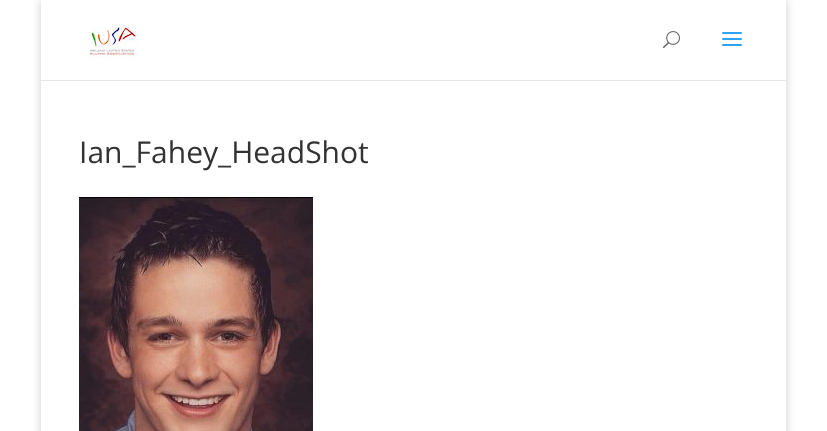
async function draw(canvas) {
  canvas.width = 827;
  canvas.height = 431;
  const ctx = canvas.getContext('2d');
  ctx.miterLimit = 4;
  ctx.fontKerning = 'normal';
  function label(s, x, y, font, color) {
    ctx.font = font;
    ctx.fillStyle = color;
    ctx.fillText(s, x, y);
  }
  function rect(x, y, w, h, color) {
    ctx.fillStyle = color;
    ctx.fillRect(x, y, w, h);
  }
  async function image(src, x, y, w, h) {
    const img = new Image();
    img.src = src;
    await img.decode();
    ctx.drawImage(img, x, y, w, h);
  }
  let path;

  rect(0, 0, 827, 431, '#fff');
  ctx.save();
  path = new Path2D('M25 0H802V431H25ZM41 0H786V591H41Z');
  ctx.clip(path, 'evenodd');
  ctx.fillStyle = '#00000033';
  ctx.filter = 'blur(5px)';
  ctx.beginPath();
  ctx.rect(41, 0, 745, 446);
  ctx.fill();
  ctx.filter = 'none';
  ctx.restore();
  rect(41, 80, 745, 1, '#e6e6e6');
  await image('assets/img1.png', 88, 27, 50, 32);
  await image('assets/img2.png', 663, 31, 17, 18);
  await image('assets/img3.png', 722, 32, 20, 14);
  label('Ian_Fahey_HeadShot', 79, 163, '30px Open Sans', '#333');
  await image('assets/img4.png', 79, 197, 234, 234);
}

draw(document.querySelector('canvas'));
